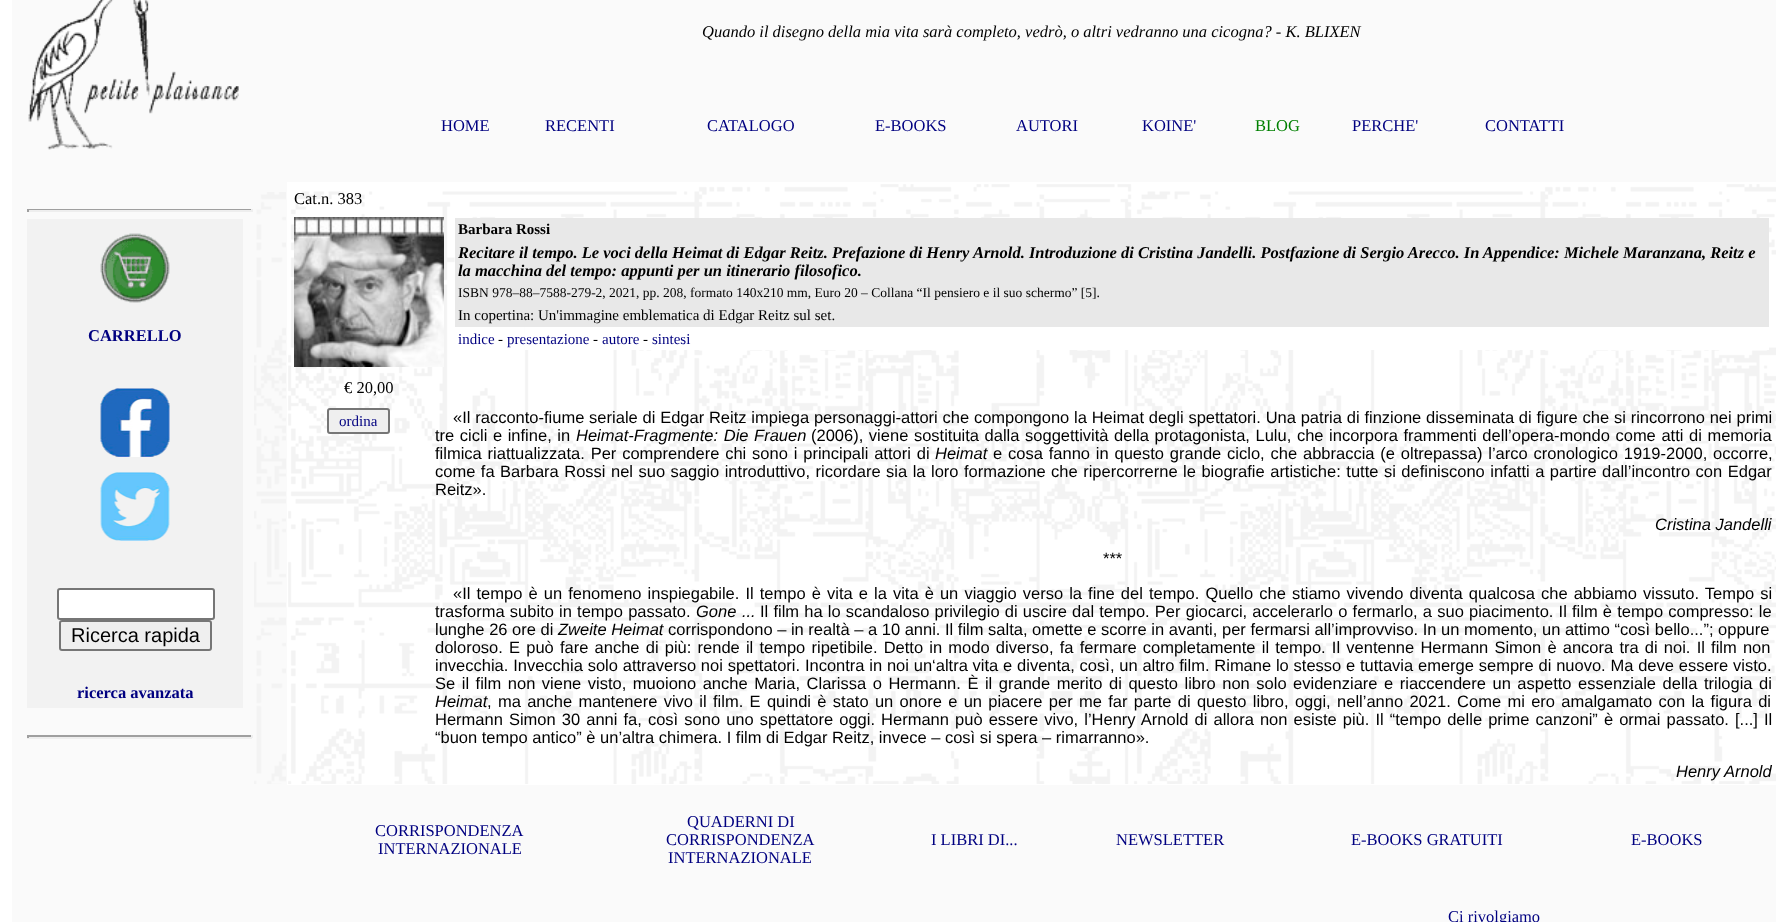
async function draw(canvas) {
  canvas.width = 1787;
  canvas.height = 922;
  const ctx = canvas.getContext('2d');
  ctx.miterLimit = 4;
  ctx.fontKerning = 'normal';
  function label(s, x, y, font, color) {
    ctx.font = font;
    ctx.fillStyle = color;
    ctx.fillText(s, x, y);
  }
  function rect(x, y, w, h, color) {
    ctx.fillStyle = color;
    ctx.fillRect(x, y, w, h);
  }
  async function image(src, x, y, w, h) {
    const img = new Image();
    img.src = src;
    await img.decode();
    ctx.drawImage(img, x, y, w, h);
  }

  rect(0, 0, 1787, 922, '#fff');
  rect(12, 0, 15, 922, '#fafafa');
  rect(27, 0, 225, 922, '#fafafa');
  await image('assets/img1.png', 28, 0, 211, 150);
  rect(252, 0, 1524, 68, '#fafafa');
  label('Quando il disegno della mia vita sarà completo, vedrò, o altri vedranno una cicogna? - K. BLIXEN', 702, 37, 'italic 16.5px Liberation Serif', '#000');
  rect(252, 68, 1524, 114, '#fafafa');
  label('HOME', 441, 131, '16.5px Liberation Serif', '#000080');
  label('RECENTI', 545, 131, '16.5px Liberation Serif', '#000080');
  label('CATALOGO', 707, 131, '16.5px Liberation Serif', '#000080');
  label('E-BOOKS', 875, 131, '16.5px Liberation Serif', '#000080');
  label('AUTORI', 1016, 131, '16.5px Liberation Serif', '#000080');
  label('KOINE\'', 1142, 131, '16.5px Liberation Serif', '#000080');
  label('BLOG', 1255, 131, '16.5px Liberation Serif', '#008000');
  label('PERCHE\'', 1352, 131, '16.5px Liberation Serif', '#000080');
  label('CONTATTI', 1485, 131, '16.5px Liberation Serif', '#000080');
  rect(27, 209, 225, 1, '#9f9f9f');
  rect(252, 182, 35, 740, '#fafafa');
  rect(251, 209, 2, 3, '#eee');
  rect(27, 210, 225, 2, '#eee');
  rect(27, 209, 2, 3, '#9f9f9f');
  rect(27, 219, 216, 489, '#f2f2f2');
  await image('assets/img2.png', 100, 233, 70, 70);
  label('CARRELLO', 88, 341, 'bold 16.5px Liberation Serif', '#000080');
  await image('assets/img3.png', 100, 388, 70, 69);
  await image('assets/img4.png', 100, 472, 70, 69);
  ctx.fillStyle = '#fff';
  ctx.beginPath();
  ctx.roundRect(58, 589, 156, 30, 2);
  ctx.fill();
  ctx.strokeStyle = '#767676';
  ctx.lineWidth = 2;
  ctx.stroke();
  ctx.fillStyle = '#efefef';
  ctx.beginPath();
  ctx.roundRect(60, 621, 151, 29, 2);
  ctx.fill();
  ctx.stroke();
  label('Ricerca rapida', 71, 642, '20px Liberation Sans', '#000');
  label('ricerca avanzata', 77, 698, 'bold 16.5px Liberation Serif', '#000080');
  rect(27, 735, 225, 2, '#9f9f9f');
  rect(251, 735, 2, 3, '#eee');
  rect(27, 737, 225, 2, '#eee');
  rect(27, 735, 2, 3, '#9f9f9f');
  await image('assets/img5.png', 254, 192, 32, 592);
  await image('assets/img6.png', 288, 184, 1488, 600);
  label('Cat.n. 383', 294, 204, '16.5px Liberation Serif', '#000');
  await image('assets/img7.png', 294, 217, 150, 150);
  rect(455, 218, 1314, 109, '#e8e8e8');
  label('Barbara Rossi', 458, 234, 'bold 15px Liberation Serif', '#000');
  label('Recitare il tempo. Le voci della Heimat di Edgar Reitz. Prefazione di Henry Arnold. Introduzione di Cristina Jandelli. Postfazione di Sergio Arecco. In Appendice: Michele Maranzana, Reitz e', 458, 258, 'italic bold 16.5px Liberation Serif', '#000');
  label('la macchina del tempo: appunti per un itinerario filosofico.', 458, 276, 'italic bold 16.5px Liberation Serif', '#000');
  label('ISBN 978–88–7588-279-2, 2021, pp. 208, formato 140x210 mm, Euro 20 – Collana “Il pensiero e il suo schermo” [5].', 458, 297, '13.5px Liberation Serif', '#000');
  label('In copertina: Un\'immagine emblematica di Edgar Reitz sul set.', 458, 320, '15px Liberation Serif', '#000');
  rect(525, 327, 1244, 23, '#fff');
  label('indice', 458, 344, '15px Liberation Serif', '#000080');
  label('-', 498, 344, '15px Liberation Serif', '#000');
  label('presentazione', 507, 344, '15px Liberation Serif', '#000080');
  label('-', 593, 344, '15px Liberation Serif', '#000');
  label('autore', 602, 344, '15px Liberation Serif', '#000080');
  label('-', 643, 344, '15px Liberation Serif', '#000');
  label('sintesi', 652, 344, '15px Liberation Serif', '#000080');
  label('€ 20,00', 344, 393, '16.5px Liberation Serif', '#000');
  ctx.fillStyle = '#efefef';
  ctx.beginPath();
  ctx.roundRect(328, 409, 61, 24, 2);
  ctx.fill();
  ctx.stroke();
  label('ordina', 339, 426, '15px Liberation Serif', '#000080');
  ctx.wordSpacing = '0.2px';
  label('«Il racconto-fiume seriale di Edgar Reitz impiega personaggi-attori che compongono la Heimat degli spettatori. Una patria di finzione disseminata di figure che si rincorrono nei primi', 453, 423, '16.5px Liberation Sans', '#000');
  ctx.wordSpacing = '1px';
  label('tre cicli e infine, in', 435, 441, '16.5px Liberation Sans', '#000');
  label('Heimat-Fragmente: Die Frauen', 576, 441, 'italic 16.5px Liberation Sans', '#000');
  label('(2006), viene sostituita dalla soggettività della protagonista, Lulu, che incorpora frammenti dell’opera-mondo come atti di memoria', 811, 441, '16.5px Liberation Sans', '#000');
  ctx.wordSpacing = '1.25px';
  label('filmica riattualizzata. Per comprendere chi sono i principali attori di', 435, 459, '16.5px Liberation Sans', '#000');
  ctx.wordSpacing = '0px';
  label('Heimat', 935, 459, 'italic 16.5px Liberation Sans', '#000');
  ctx.wordSpacing = '1.25px';
  label('e cosa fanno in questo grande ciclo, che abbraccia (e oltrepassa) l’arco cronologico 1919-2000, occorre,', 993, 459, '16.5px Liberation Sans', '#000');
  ctx.wordSpacing = '0.9px';
  label('come fa Barbara Rossi nel suo saggio introduttivo, ricordare sia la loro formazione che ripercorrerne le biografie artistiche: tutte si definiscono infatti a partire dall’incontro con Edgar', 435, 477, '16.5px Liberation Sans', '#000');
  ctx.wordSpacing = '0px';
  label('Reitz».', 435, 495, '16.5px Liberation Sans', '#000');
  label('Cristina Jandelli', 1655, 530, 'italic 16.5px Liberation Sans', '#000');
  label('***', 1103, 564, '16.5px Liberation Sans', '#000');
  ctx.wordSpacing = '1.5px';
  label('«Il tempo è un fenomeno inspiegabile. Il tempo è vita e la vita è un viaggio verso la fine del tempo. Quello che stiamo vivendo diventa qualcosa che abbiamo vissuto. Tempo si', 453, 599, '16.5px Liberation Sans', '#000');
  ctx.wordSpacing = '0.6px';
  label('trasforma subito in tempo passato.', 435, 617, '16.5px Liberation Sans', '#000');
  ctx.wordSpacing = '1px';
  label('Gone ...', 696, 617, 'italic 16.5px Liberation Sans', '#000');
  ctx.wordSpacing = '0.6px';
  label('Il film ha lo scandaloso privilegio di uscire dal tempo. Per giocarci, accelerarlo o fermarlo, a suo piacimento. Il film è tempo compresso: le', 760, 617, '16.5px Liberation Sans', '#000');
  ctx.wordSpacing = '0px';
  label('lunghe 26 ore di', 435, 635, '16.5px Liberation Sans', '#000');
  label('Zweite Heimat', 558, 635, 'italic 16.5px Liberation Sans', '#000');
  label('corrispondono – in realtà – a 10 anni. Il film salta, omette e scorre in avanti, per fermarsi all’improvviso. In un momento, un attimo “così bello...”; oppure', 668, 635, '16.5px Liberation Sans', '#000');
  ctx.wordSpacing = '1.6px';
  label('doloroso. E può fare anche di più: rende il tempo ripetibile. Detto in modo diverso, fa fermare completamente il tempo. Il ventenne Hermann Simon è ancora tra di noi. Il film non', 435, 653, '16.5px Liberation Sans', '#000');
  ctx.wordSpacing = '0.2px';
  label('invecchia. Invecchia solo attraverso noi spettatori. Incontra in noi un‘altra vita e diventa, così, un altro film. Rimane lo stesso e tuttavia emerge sempre di nuovo. Ma deve essere visto.', 435, 671, '16.5px Liberation Sans', '#000');
  ctx.wordSpacing = '1.95px';
  label('Se il film non viene visto, muoiono anche Maria, Clarissa o Hermann. È il grande merito di questo libro non solo evidenziare e riaccendere un aspetto essenziale della trilogia di', 435, 689, '16.5px Liberation Sans', '#000');
  ctx.wordSpacing = '0px';
  label('Heimat', 435, 707, 'italic 16.5px Liberation Sans', '#000');
  ctx.wordSpacing = '1.75px';
  label(', ma anche mantenere vivo il film. E quindi è stato un onore e un piacere per me far parte di questo libro, oggi, nell’anno 2021. Come mi ero amalgamato con la figura di', 487, 707, '16.5px Liberation Sans', '#000');
  ctx.wordSpacing = '1.5px';
  label('Hermann Simon 30 anni fa, così sono uno spettatore oggi. Hermann può essere vivo, l’Henry Arnold di allora non esiste più. Il “tempo delle prime canzoni” è ormai passato. [...] Il', 435, 725, '16.5px Liberation Sans', '#000');
  ctx.wordSpacing = '0px';
  label('“buon tempo antico” è un’altra chimera. I film di Edgar Reitz, invece – così si spera – rimarranno».', 435, 743, '16.5px Liberation Sans', '#000');
  label('Henry Arnold', 1676, 777, 'italic 16.5px Liberation Sans', '#000');
  rect(287, 785, 1489, 137, '#fafafa');
  label('CORRISPONDENZA', 375, 836, '16.5px Liberation Serif', '#000080');
  label('INTERNAZIONALE', 378, 854, '16.5px Liberation Serif', '#000080');
  label('QUADERNI DI', 687, 827, '16.5px Liberation Serif', '#000080');
  label('CORRISPONDENZA', 666, 845, '16.5px Liberation Serif', '#000080');
  label('INTERNAZIONALE', 668, 863, '16.5px Liberation Serif', '#000080');
  label('I LIBRI DI...', 931, 845, '16.5px Liberation Serif', '#000080');
  label('NEWSLETTER', 1116, 845, '16.5px Liberation Serif', '#000080');
  label('E-BOOKS GRATUITI', 1351, 845, '16.5px Liberation Serif', '#000080');
  label('E-BOOKS', 1631, 845, '16.5px Liberation Serif', '#000080');
  label('Ci rivolgiamo', 1448, 922, '16.5px Liberation Serif', '#000080');
}

draw(document.querySelector('canvas'));
